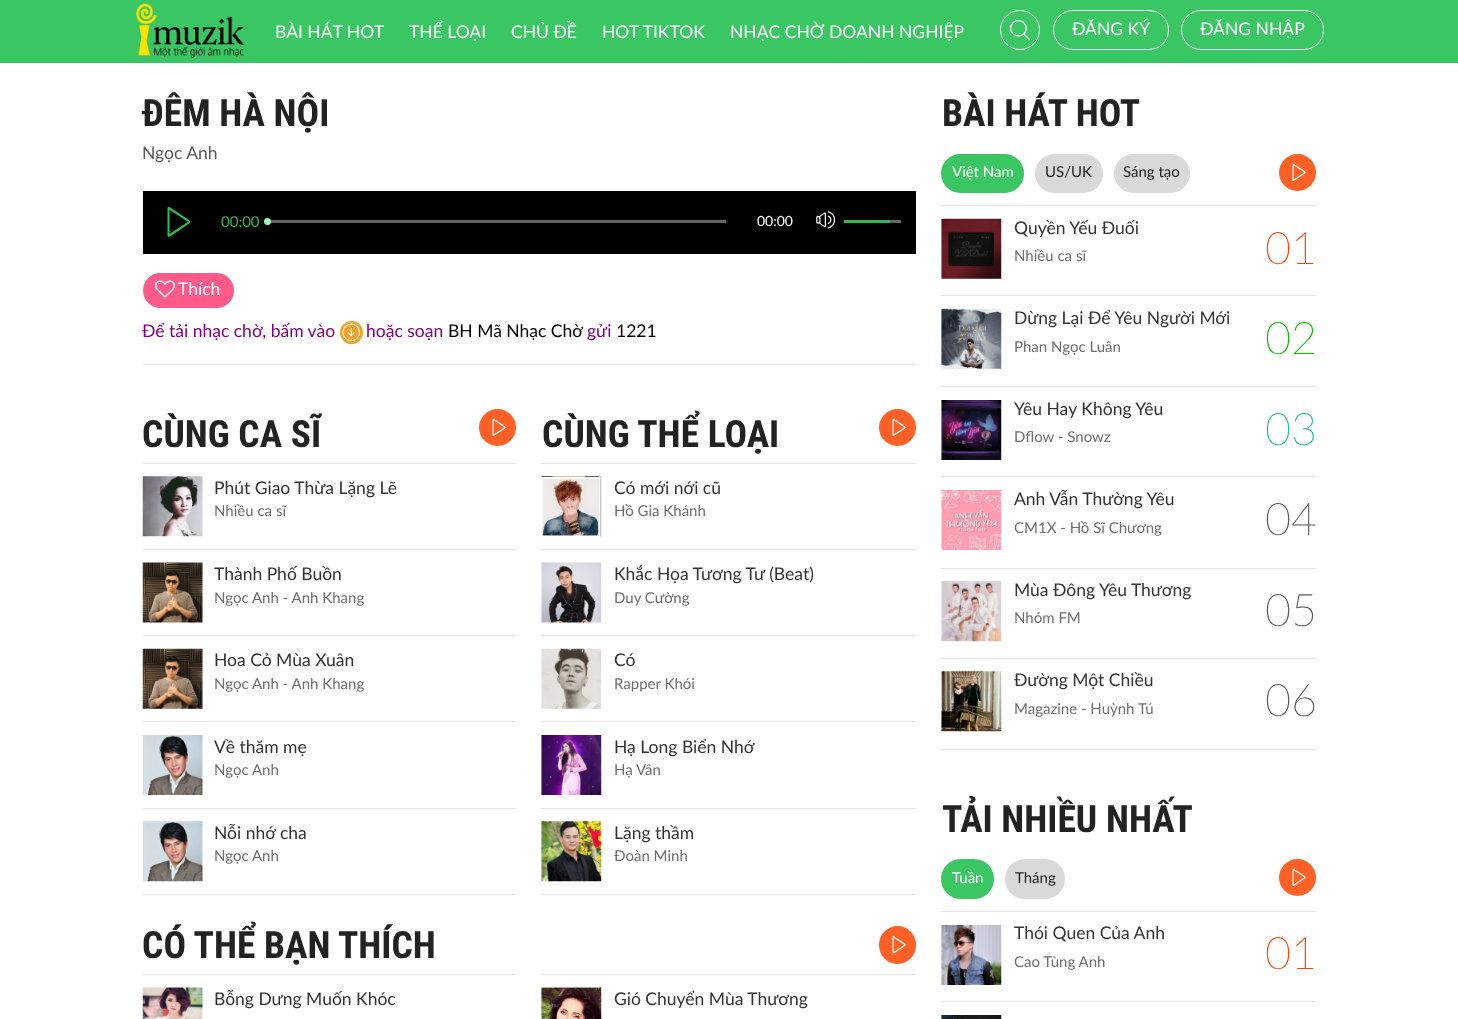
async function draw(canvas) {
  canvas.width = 1458;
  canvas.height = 1019;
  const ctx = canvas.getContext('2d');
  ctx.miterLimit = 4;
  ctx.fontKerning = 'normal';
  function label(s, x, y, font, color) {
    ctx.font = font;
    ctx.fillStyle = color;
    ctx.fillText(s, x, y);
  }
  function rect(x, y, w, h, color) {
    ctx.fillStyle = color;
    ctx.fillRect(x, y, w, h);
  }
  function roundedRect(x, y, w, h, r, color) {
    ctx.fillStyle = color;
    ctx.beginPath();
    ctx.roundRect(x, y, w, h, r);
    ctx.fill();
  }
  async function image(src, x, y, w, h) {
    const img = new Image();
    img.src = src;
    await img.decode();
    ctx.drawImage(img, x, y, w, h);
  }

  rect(0, 0, 1458, 1019, '#fff');
  rect(0, 0, 1458, 63, '#3ac663');
  await image('assets/img1.png', 135, 3, 110, 55);
  label('BÀI HÁT HOT', 275, 38, '17.5px Lato', '#fff');
  label('THỂ LOẠI', 409, 38, '17.5px Lato', '#fff');
  label('CHỦ ĐỀ', 511, 38, '17.5px Lato', '#fff');
  label('HOT TIKTOK', 602, 38, '17.5px Lato', '#fff');
  label('NHẠC CHỜ DOANH NGHIỆP', 730, 38, '17.5px Lato', '#fff');
  ctx.beginPath();
  ctx.arc(1020, 30, 19.5, 0, 2 * Math.PI);
  ctx.strokeStyle = '#fff';
  ctx.stroke();
  await image('assets/img2.png', 1010, 20, 20, 20);
  ctx.beginPath();
  ctx.roundRect(1053.5, 10.5, 115, 39, 19.5);
  ctx.stroke();
  label('ĐĂNG KÝ', 1072, 35, '17.5px Lato', '#fff');
  ctx.beginPath();
  ctx.roundRect(1181.5, 10.5, 142, 39, 19.5);
  ctx.stroke();
  label('ĐĂNG NHẬP', 1200, 35, '17.5px Lato', '#fff');
  label('ĐÊM HÀ NỘI', 142, 126, 'bold 37.5px Roboto Condensed', '#222');
  label('Ngọc Anh', 142, 159, '17.5px Lato', '#585858');
  rect(143, 191, 773, 63, '#000');
  await image('assets/img3.png', 167, 206, 23, 31);
  label('00:00', 221, 227, '15px Lato', '#2fbb50');
  rect(271, 220, 455, 3, '#666');
  ctx.fillStyle = '#9ffebc';
  ctx.beginPath();
  ctx.arc(267.5, 221.5, 3.5, 0, 2 * Math.PI);
  ctx.fill();
  label('00:00', 757, 226, '14px Lato', '#fff');
  await image('assets/img4.png', 816, 211, 20, 18);
  rect(890, 220, 11, 3, '#666');
  rect(844, 220, 46, 3, '#2fbb52');
  rect(143, 364, 773, 1, '#e5e5e5');
  roundedRect(143, 273, 91, 35, 17.5, '#ff5a8a');
  await image('assets/img5.png', 155, 280, 20, 18);
  label('Thích', 178, 295, '17.5px Lato', '#fff');
  label('Để tải nhạc chờ, bấm vào', 142, 337, '17.5px Lato', '#800080');
  ctx.fillStyle = '#faa028';
  ctx.beginPath();
  ctx.arc(351.5, 332.5, 11.5, 0, 2 * Math.PI);
  ctx.fill();
  await image('assets/img6.png', 342, 323, 18, 19);
  label('hoặc soạn', 366, 337, '17.5px Lato', '#800080');
  label('BH Mã Nhạc Chờ', 448, 337, '17.5px Lato', '#000');
  label('gửi', 587, 337, '17.5px Lato', '#800080');
  label('1221', 616, 337, '17.5px Lato', '#000');
  label('CÙNG CA SĨ', 142, 447, 'bold 37.5px Roboto Condensed', '#222');
  ctx.fillStyle = '#ff6026';
  ctx.beginPath();
  ctx.arc(497.5, 427.5, 18.5, 0, 2 * Math.PI);
  ctx.fill();
  await image('assets/img7.png', 492, 418, 14, 19);
  rect(143, 463, 373, 1, '#e5e5e5');
  await image('assets/img8.png', 142, 476, 61, 61);
  label('Phút Giao Thừa Lặng Lẽ', 214, 494, '17.5px Lato', '#333');
  label('Nhiều ca sĩ', 214, 516, '15px Lato', '#6e6e6e');
  rect(143, 549, 373, 1, '#e5e5e5');
  await image('assets/img9.png', 142, 562, 61, 61);
  label('Thành Phố Buồn', 214, 580, '17.5px Lato', '#333');
  label('Ngọc Anh - Anh Khang', 214, 603, '15px Lato', '#6e6e6e');
  rect(143, 635, 373, 1, '#e5e5e5');
  await image('assets/img10.png', 142, 648, 61, 61);
  label('Hoa Cỏ Mùa Xuân', 214, 666, '17.5px Lato', '#333');
  label('Ngọc Anh - Anh Khang', 214, 689, '15px Lato', '#6e6e6e');
  rect(143, 721, 373, 1, '#e5e5e5');
  await image('assets/img11.png', 142, 735, 61, 60);
  label('Về thăm mẹ', 214, 753, '17.5px Lato', '#333');
  label('Ngọc Anh', 214, 775, '15px Lato', '#6e6e6e');
  rect(143, 808, 373, 1, '#e5e5e5');
  rect(143, 894, 373, 1, '#e5e5e5');
  await image('assets/img12.png', 142, 821, 61, 61);
  label('Nỗi nhớ cha', 214, 839, '17.5px Lato', '#333');
  label('Ngọc Anh', 214, 861, '15px Lato', '#6e6e6e');
  label('CÙNG THỂ LOẠI', 542, 447, 'bold 37.5px Roboto Condensed', '#222');
  ctx.fillStyle = '#ff6026';
  ctx.beginPath();
  ctx.arc(897.5, 427.5, 18.5, 0, 2 * Math.PI);
  ctx.fill();
  await image('assets/img7.png', 892, 418, 14, 19);
  rect(541, 463, 375, 1, '#e5e5e5');
  await image('assets/img13.png', 541, 476, 61, 61);
  label('Có mới nới cũ', 614, 494, '17.5px Lato', '#333');
  label('Hồ Gia Khánh', 614, 516, '15px Lato', '#6e6e6e');
  rect(541, 549, 375, 1, '#e5e5e5');
  await image('assets/img14.png', 541, 562, 61, 61);
  label('Khắc Họa Tương Tư (Beat)', 614, 580, '17.5px Lato', '#333');
  label('Duy Cường', 614, 603, '15px Lato', '#6e6e6e');
  rect(541, 635, 375, 1, '#e5e5e5');
  await image('assets/img15.png', 541, 648, 61, 61);
  label('Có', 614, 666, '17.5px Lato', '#333');
  label('Rapper Khói', 614, 689, '15px Lato', '#6e6e6e');
  rect(541, 721, 375, 1, '#e5e5e5');
  await image('assets/img16.png', 541, 735, 61, 60);
  label('Hạ Long Biển Nhớ', 614, 753, '17.5px Lato', '#333');
  label('Hạ Vân', 614, 775, '15px Lato', '#6e6e6e');
  rect(541, 808, 375, 1, '#e5e5e5');
  rect(541, 894, 375, 1, '#e5e5e5');
  await image('assets/img17.png', 541, 821, 61, 61);
  label('Lặng thầm', 614, 839, '17.5px Lato', '#333');
  label('Đoàn Minh', 614, 861, '15px Lato', '#6e6e6e');
  label('CÓ THỂ BẠN THÍCH', 142, 958, 'bold 37.5px Roboto Condensed', '#222');
  roundedRect(879, 926, 37, 38, 18.5, '#ff6026');
  await image('assets/img18.png', 892, 936, 14, 18);
  rect(143, 974, 373, 1, '#e5e5e5');
  await image('assets/img19.png', 142, 987, 61, 32);
  label('Bỗng Dưng Muốn Khóc', 214, 1005, '17.5px Lato', '#333');
  rect(541, 974, 375, 1, '#e5e5e5');
  await image('assets/img20.png', 541, 987, 61, 32);
  label('Gió Chuyển Mùa Thương', 614, 1005, '17.5px Lato', '#333');
  label('BÀI HÁT HOT', 942, 126, 'bold 37.5px Roboto Condensed', '#222');
  roundedRect(941, 154, 83, 39, 19.5, '#3ac663');
  label('Việt Nam', 952, 177, '15px Lato', '#fff');
  roundedRect(1035, 154, 68, 39, 19.5, '#d9d9d9');
  label('US/UK', 1045, 177, '15px Lato', '#222');
  roundedRect(1114, 154, 76, 39, 19.5, '#d9d9d9');
  label('Sáng tạo', 1123, 177, '15px Lato', '#222');
  ctx.fillStyle = '#ff6026';
  ctx.beginPath();
  ctx.arc(1297.5, 172.5, 18.5, 0, 2 * Math.PI);
  ctx.fill();
  await image('assets/img7.png', 1292, 163, 14, 19);
  rect(941, 205, 375, 1, '#e5e5e5');
  await image('assets/img21.png', 941, 218, 61, 61);
  label('Quyền Yếu Đuối', 1014, 234, '17.5px Lato', '#333');
  label('Nhiều ca sĩ', 1014, 261, '15px Lato', '#6e6e6e');
  label('01', 1265, 264, '100 45px Lato', '#ff4200');
  rect(941, 295, 375, 1, '#e5e5e5');
  await image('assets/img22.png', 941, 308, 61, 61);
  label('Dừng Lại Để Yêu Người Mới', 1014, 324, '17.5px Lato', '#333');
  label('Phan Ngọc Luân', 1014, 352, '15px Lato', '#6e6e6e');
  label('02', 1265, 354, '100 45px Lato', '#09ba00');
  rect(941, 386, 375, 1, '#e5e5e5');
  await image('assets/img23.png', 941, 400, 61, 60);
  label('Yêu Hay Không Yêu', 1014, 415, '17.5px Lato', '#333');
  label('Dflow - Snowz', 1014, 442, '15px Lato', '#6e6e6e');
  label('03', 1265, 445, '100 45px Lato', '#28b7a3');
  rect(941, 476, 375, 1, '#e5e5e5');
  await image('assets/img24.png', 941, 490, 61, 60);
  label('Anh Vẫn Thường Yêu', 1014, 505, '17.5px Lato', '#333');
  label('CM1X - Hồ Sĩ Chương', 1014, 533, '15px Lato', '#6e6e6e');
  label('04', 1265, 535, '100 45px Lato', '#585858');
  rect(941, 568, 375, 1, '#e5e5e5');
  await image('assets/img25.png', 941, 581, 61, 61);
  label('Mùa Đông Yêu Thương', 1014, 596, '17.5px Lato', '#333');
  label('Nhóm FM', 1014, 623, '15px Lato', '#6e6e6e');
  label('05', 1265, 626, '100 45px Lato', '#585858');
  rect(941, 658, 375, 1, '#e5e5e5');
  rect(941, 749, 375, 1, '#e5e5e5');
  await image('assets/img26.png', 941, 671, 61, 61);
  label('Đường Một Chiều', 1014, 686, '17.5px Lato', '#333');
  label('Magazine - Huỳnh Tú', 1014, 714, '15px Lato', '#6e6e6e');
  label('06', 1265, 716, '100 45px Lato', '#585858');
  label('TẢI NHIỀU NHẤT', 942, 832, 'bold 37.5px Roboto Condensed', '#222');
  roundedRect(941, 859, 53, 40, 20, '#3ac663');
  label('Tuần', 952, 883, '15px Lato', '#fff');
  roundedRect(1005, 859, 60, 40, 20, '#d9d9d9');
  label('Tháng', 1015, 883, '15px Lato', '#222');
  ctx.fillStyle = '#ff6026';
  ctx.beginPath();
  ctx.arc(1297.5, 877.5, 18.5, 0, 2 * Math.PI);
  ctx.fill();
  await image('assets/img7.png', 1292, 868, 14, 19);
  rect(941, 911, 375, 1, '#e5e5e5');
  await image('assets/img27.png', 941, 925, 61, 60);
  label('Thói Quen Của Anh', 1014, 939, '17.5px Lato', '#333');
  label('Cao Tùng Anh', 1014, 967, '15px Lato', '#6e6e6e');
  label('01', 1265, 969, '100 45px Lato', '#ff4200');
  rect(941, 1001, 375, 1, '#e5e5e5');
  await image('assets/img28.png', 941, 1015, 61, 4);
}

draw(document.querySelector('canvas'));
